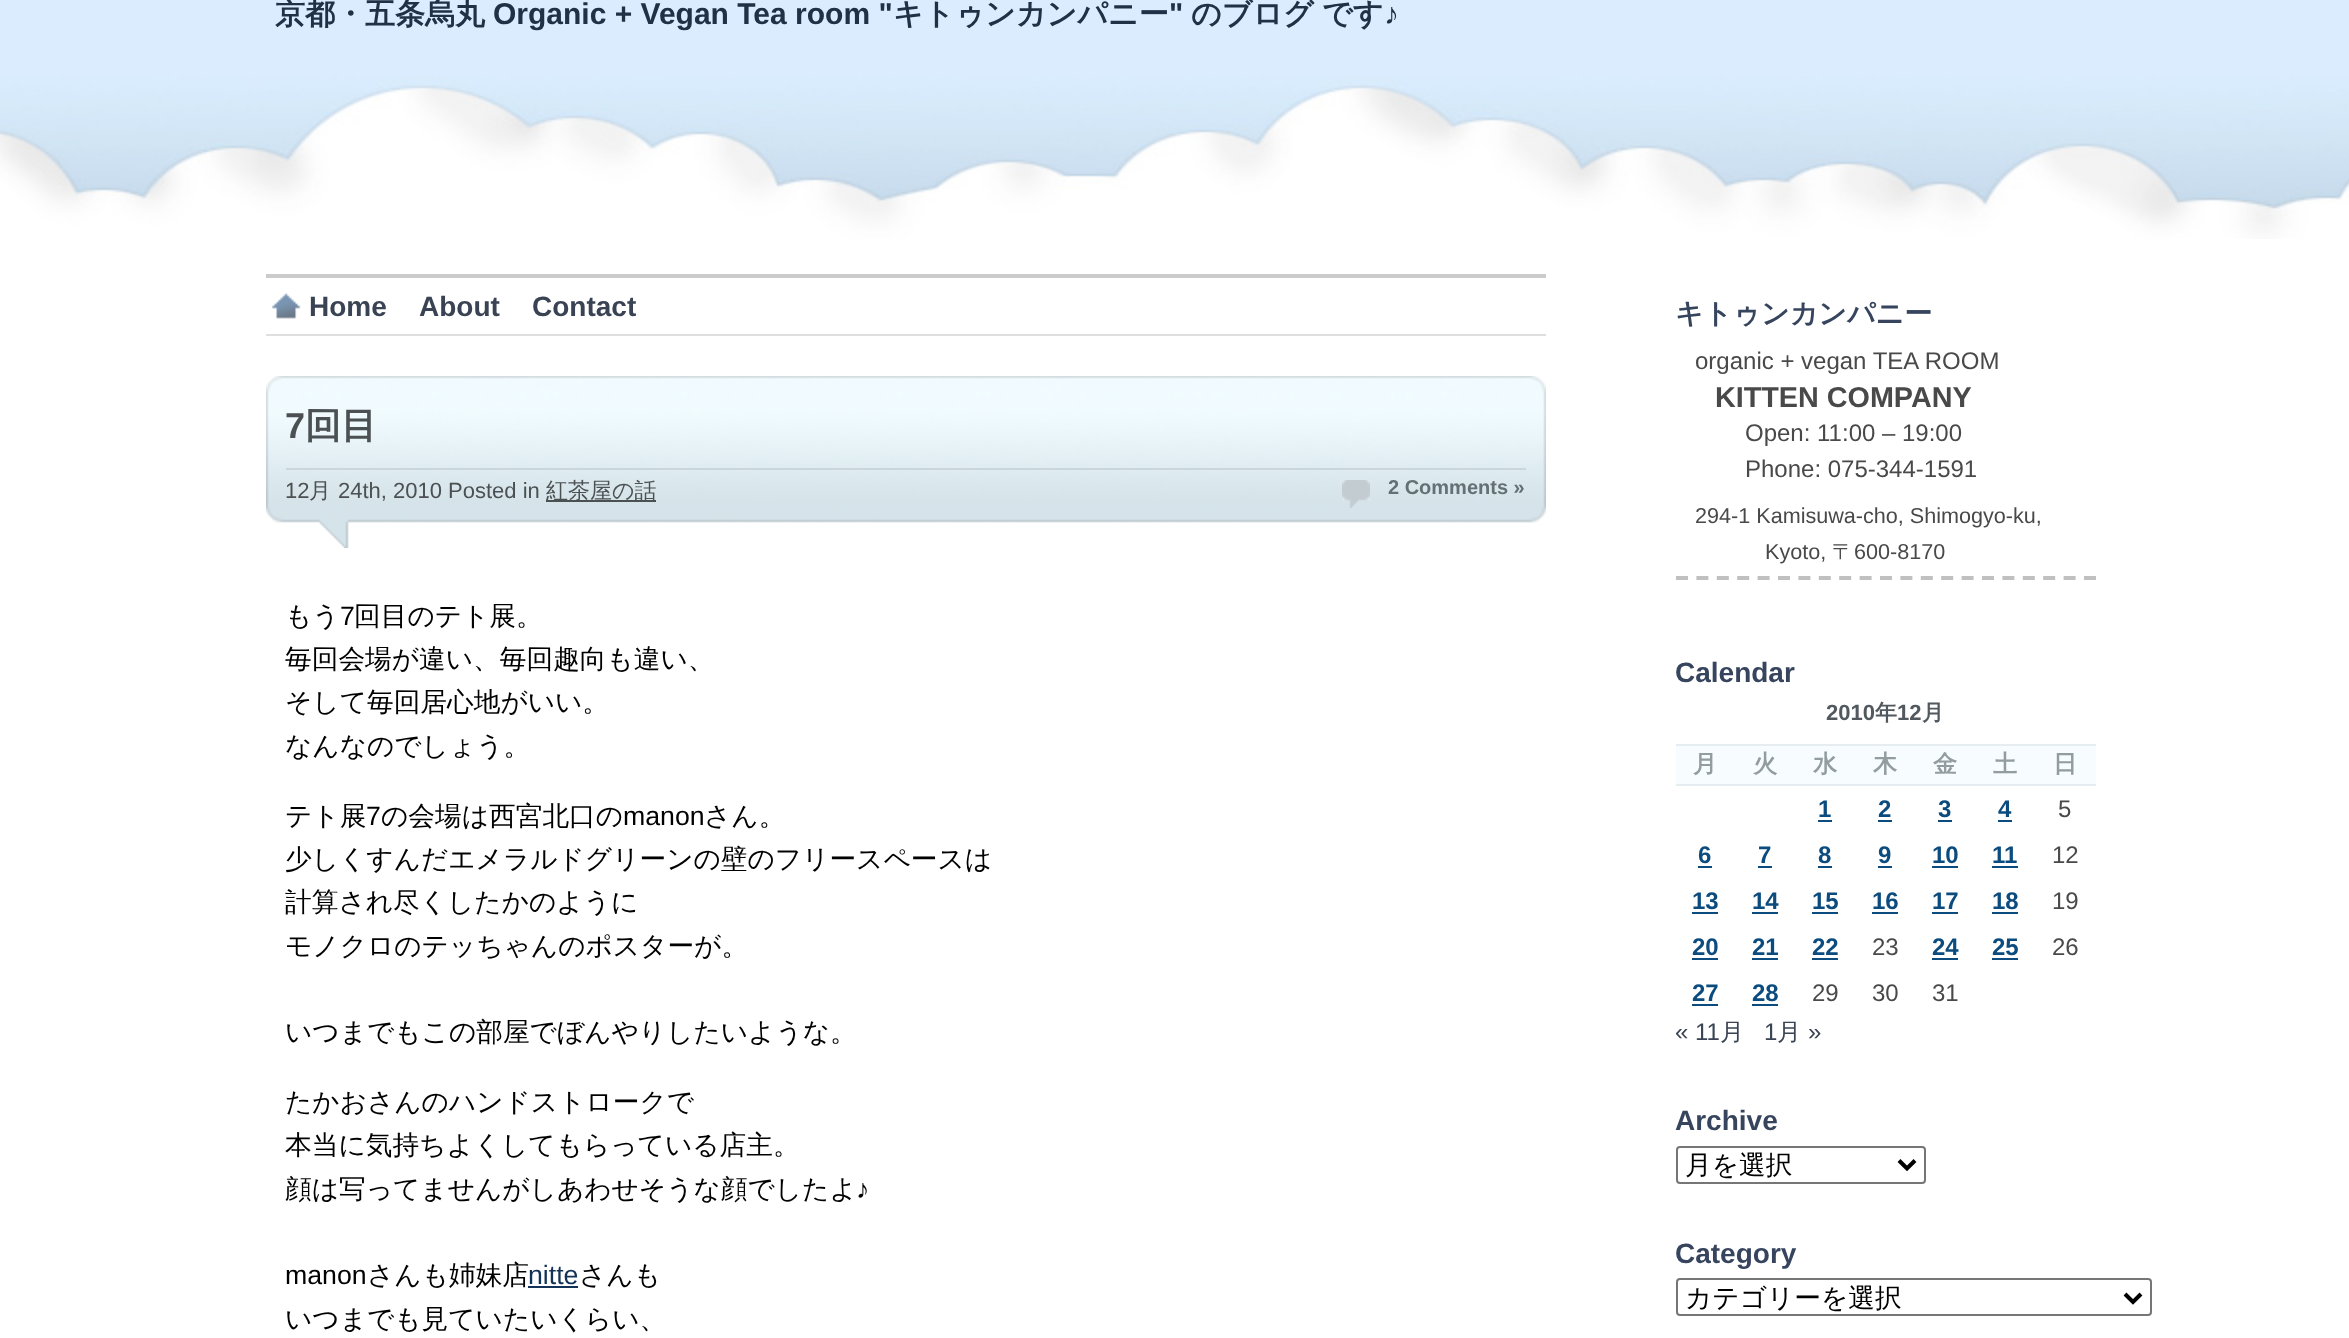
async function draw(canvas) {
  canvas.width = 2349;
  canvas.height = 1338;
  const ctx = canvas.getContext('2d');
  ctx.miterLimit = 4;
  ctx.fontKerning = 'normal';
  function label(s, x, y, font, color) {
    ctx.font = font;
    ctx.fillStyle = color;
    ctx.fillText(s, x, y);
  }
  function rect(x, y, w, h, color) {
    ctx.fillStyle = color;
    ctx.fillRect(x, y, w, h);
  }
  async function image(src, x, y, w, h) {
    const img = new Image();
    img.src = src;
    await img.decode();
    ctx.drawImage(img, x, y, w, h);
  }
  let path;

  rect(0, 0, 2349, 1338, '#fff');
  await image('assets/img1.png', 0, 0, 2349, 239);
  label('京都・五条烏丸', 275, 24, 'bold 30px WenQuanYi Zen Hei', '#203045');
  label('Organic + Vegan Tea room "', 493, 24, 'bold 30px Liberation Sans', '#203045');
  label('キトゥンカンパニー', 893, 24, 'bold 30px WenQuanYi Zen Hei', '#203045');
  label('"', 1169, 24, 'bold 30px Liberation Sans', '#203045');
  label('のブログ', 1191, 24, 'bold 30px WenQuanYi Zen Hei', '#203045');
  label('です', 1322, 24, 'bold 30px WenQuanYi Zen Hei', '#203045');
  label('♪', 1384, 24, 'bold 30px Liberation Sans', '#203045');
  rect(266, 274, 1280, 4, '#cbcbcb');
  rect(266, 334, 1280, 2, '#dfdfdf');
  await image('assets/img2.png', 271, 293, 30, 26);
  label('Home', 309, 316, 'bold 28px Liberation Sans', '#3a4353');
  label('About', 419, 316, 'bold 28px Liberation Sans', '#3a4353');
  label('Contact', 532, 316, 'bold 28px Liberation Sans', '#3a4353');
  await image('assets/img3.png', 266, 392, 1280, 156);
  await image('assets/img4.png', 266, 376, 1280, 16);
  label('7', 285, 438, 'bold 36px Liberation Sans', '#4b5052');
  label('回目', 305, 438, 'bold 36px WenQuanYi Zen Hei', '#4b5052');
  rect(286, 468, 1240, 2, '#cad6db');
  label('12', 285, 498, '22px Liberation Sans', '#4b5052');
  label('月', 309, 498, '500 22px WenQuanYi Zen Hei', '#4b5052');
  label('24th, 2010 Posted in', 338, 498, '22px Liberation Sans', '#4b5052');
  rect(546, 500, 110, 2, '#4b5052');
  label('紅茶屋の話', 546, 498, '500 22px WenQuanYi Zen Hei', '#4b5052');
  await image('assets/img5.png', 1342, 480, 28, 28);
  label('2 Comments »', 1388, 494, 'bold 20px Liberation Sans', '#657074');
  label('もう', 285, 625, '500 26.7px WenQuanYi Zen Hei', '#000');
  label('7', 340, 625, '26.7px Liberation Sans', '#000');
  label('回目のテト展。', 354, 625, '500 26.7px WenQuanYi Zen Hei', '#000');
  label('毎回会場が違い、毎回趣向も違い、', 285, 668, '500 26.7px WenQuanYi Zen Hei', '#000');
  label('そして毎回居心地がいい。', 285, 711, '500 26.7px WenQuanYi Zen Hei', '#000');
  label('なんなのでしょう。', 285, 755, '500 26.7px WenQuanYi Zen Hei', '#000');
  label('テト展', 285, 825, '500 26.7px WenQuanYi Zen Hei', '#000');
  label('7', 366, 825, '26.7px Liberation Sans', '#000');
  label('の会場は西宮北口の', 381, 825, '500 26.7px WenQuanYi Zen Hei', '#000');
  label('manon', 623, 825, '26.7px Liberation Sans', '#000');
  label('さん。', 704, 825, '500 26.7px WenQuanYi Zen Hei', '#000');
  label('少しくすんだエメラルドグリーンの壁のフリースペースは', 285, 868, '500 26.7px WenQuanYi Zen Hei', '#000');
  label('計算され尽くしたかのように', 285, 911, '500 26.7px WenQuanYi Zen Hei', '#000');
  label('モノクロのテッちゃんのポスターが。', 285, 955, '500 26.7px WenQuanYi Zen Hei', '#000');
  label('いつまでもこの部屋でぼんやりしたいような。', 285, 1041, '500 26.7px WenQuanYi Zen Hei', '#000');
  label('たかおさんのハンドストロークで', 285, 1111, '500 26.7px WenQuanYi Zen Hei', '#000');
  label('本当に気持ちよくしてもらっている店主。', 285, 1154, '500 26.7px WenQuanYi Zen Hei', '#000');
  label('顔は写ってませんがしあわせそうな顔でしたよ', 285, 1198, '500 26.7px WenQuanYi Zen Hei', '#000');
  label('♪', 856, 1198, '26.7px Liberation Sans', '#000');
  label('manon', 285, 1284, '26.7px Liberation Sans', '#000');
  label('さんも姉妹店', 367, 1284, '500 26.7px WenQuanYi Zen Hei', '#000');
  label('nitte', 528, 1284, '26.7px Liberation Sans', '#133257');
  rect(528, 1286, 50, 2, '#133257');
  label('さんも', 579, 1284, '500 26.7px WenQuanYi Zen Hei', '#000');
  label('いつまでも見ていたいくらい、', 285, 1328, '500 26.7px WenQuanYi Zen Hei', '#000');
  label('キトゥンカンパニー', 1675, 323, 'bold 28px WenQuanYi Zen Hei', '#36445e');
  label('organic + vegan TEA ROOM', 1695, 369, '24px Liberation Sans', '#494949');
  label('KITTEN COMPANY', 1715, 407, 'bold 28.75px Liberation Sans', '#494949');
  label('Open: 11:00 – 19:00', 1745, 441, '24px Liberation Sans', '#494949');
  label('Phone: 075-344-1591', 1745, 477, '24px Liberation Sans', '#494949');
  path = new Path2D('M1676 578H2096');
  ctx.strokeStyle = '#c0c0c0';
  ctx.lineWidth = 4;
  ctx.setLineDash([12, 8.4]);
  ctx.stroke(path);
  label('294-1 Kamisuwa-cho, Shimogyo-ku,', 1695, 523, '21.6px Liberation Sans', '#494949');
  label('Kyoto,', 1765, 559, '21.6px Liberation Sans', '#494949');
  label('〒', 1832, 559, '500 21.6px WenQuanYi Zen Hei', '#494949');
  label('600-8170', 1854, 559, '21.6px Liberation Sans', '#494949');
  label('Calendar', 1675, 682, 'bold 28px Liberation Sans', '#36445e');
  label('2010', 1826, 720, 'bold 22px Liberation Sans', '#52595e');
  label('年', 1875, 720, 'bold 22px WenQuanYi Zen Hei', '#52595e');
  label('12', 1897, 720, 'bold 22px Liberation Sans', '#52595e');
  label('月', 1922, 720, 'bold 22px WenQuanYi Zen Hei', '#52595e');
  rect(1676, 746, 420, 38, '#f6fcff');
  rect(1676, 744, 420, 2, '#e5edf1');
  rect(1676, 784, 420, 2, '#e5edf1');
  label('月', 1693, 772, 'bold 24px WenQuanYi Zen Hei', '#939c9e');
  label('火', 1753, 772, 'bold 24px WenQuanYi Zen Hei', '#939c9e');
  label('水', 1813, 772, 'bold 24px WenQuanYi Zen Hei', '#939c9e');
  label('木', 1873, 772, 'bold 24px WenQuanYi Zen Hei', '#939c9e');
  label('金', 1933, 772, 'bold 24px WenQuanYi Zen Hei', '#939c9e');
  label('土', 1993, 772, 'bold 24px WenQuanYi Zen Hei', '#939c9e');
  label('日', 2053, 772, 'bold 24px WenQuanYi Zen Hei', '#939c9e');
  label('1', 1818, 817, 'bold 24px Liberation Sans', '#0b4b7d');
  rect(1818, 820, 14, 2, '#0b4b7d');
  label('2', 1878, 817, 'bold 24px Liberation Sans', '#0b4b7d');
  rect(1878, 820, 14, 2, '#0b4b7d');
  label('3', 1938, 817, 'bold 24px Liberation Sans', '#0b4b7d');
  rect(1938, 820, 14, 2, '#0b4b7d');
  label('4', 1998, 817, 'bold 24px Liberation Sans', '#0b4b7d');
  rect(1998, 820, 14, 2, '#0b4b7d');
  label('5', 2058, 817, '24px Liberation Sans', '#494949');
  label('6', 1698, 863, 'bold 24px Liberation Sans', '#0b4b7d');
  rect(1698, 866, 14, 2, '#0b4b7d');
  label('7', 1758, 863, 'bold 24px Liberation Sans', '#0b4b7d');
  rect(1758, 866, 14, 2, '#0b4b7d');
  label('8', 1818, 863, 'bold 24px Liberation Sans', '#0b4b7d');
  rect(1818, 866, 14, 2, '#0b4b7d');
  label('9', 1878, 863, 'bold 24px Liberation Sans', '#0b4b7d');
  rect(1878, 866, 14, 2, '#0b4b7d');
  label('10', 1932, 863, 'bold 24px Liberation Sans', '#0b4b7d');
  rect(1932, 866, 26, 2, '#0b4b7d');
  label('11', 1992, 863, 'bold 24px Liberation Sans', '#0b4b7d');
  rect(1992, 866, 26, 2, '#0b4b7d');
  label('12', 2052, 863, '24px Liberation Sans', '#494949');
  label('13', 1692, 909, 'bold 24px Liberation Sans', '#0b4b7d');
  rect(1692, 912, 26, 2, '#0b4b7d');
  label('14', 1752, 909, 'bold 24px Liberation Sans', '#0b4b7d');
  rect(1752, 912, 26, 2, '#0b4b7d');
  label('15', 1812, 909, 'bold 24px Liberation Sans', '#0b4b7d');
  rect(1812, 912, 26, 2, '#0b4b7d');
  label('16', 1872, 909, 'bold 24px Liberation Sans', '#0b4b7d');
  rect(1872, 912, 26, 2, '#0b4b7d');
  label('17', 1932, 909, 'bold 24px Liberation Sans', '#0b4b7d');
  rect(1932, 912, 26, 2, '#0b4b7d');
  label('18', 1992, 909, 'bold 24px Liberation Sans', '#0b4b7d');
  rect(1992, 912, 26, 2, '#0b4b7d');
  label('19', 2052, 909, '24px Liberation Sans', '#494949');
  label('20', 1692, 955, 'bold 24px Liberation Sans', '#0b4b7d');
  rect(1692, 958, 26, 2, '#0b4b7d');
  label('21', 1752, 955, 'bold 24px Liberation Sans', '#0b4b7d');
  rect(1752, 958, 26, 2, '#0b4b7d');
  label('22', 1812, 955, 'bold 24px Liberation Sans', '#0b4b7d');
  rect(1812, 958, 26, 2, '#0b4b7d');
  label('23', 1872, 955, '24px Liberation Sans', '#494949');
  label('24', 1932, 955, 'bold 24px Liberation Sans', '#0b4b7d');
  rect(1932, 958, 26, 2, '#0b4b7d');
  label('25', 1992, 955, 'bold 24px Liberation Sans', '#0b4b7d');
  rect(1992, 958, 26, 2, '#0b4b7d');
  label('26', 2052, 955, '24px Liberation Sans', '#494949');
  label('27', 1692, 1001, 'bold 24px Liberation Sans', '#0b4b7d');
  rect(1692, 1004, 26, 2, '#0b4b7d');
  label('28', 1752, 1001, 'bold 24px Liberation Sans', '#0b4b7d');
  rect(1752, 1004, 26, 2, '#0b4b7d');
  label('29', 1812, 1001, '24px Liberation Sans', '#494949');
  label('30', 1872, 1001, '24px Liberation Sans', '#494949');
  label('31', 1932, 1001, '24px Liberation Sans', '#494949');
  label('« 11', 1675, 1040, '24px Liberation Sans', '#3a4353');
  label('月', 1720, 1040, '500 24px WenQuanYi Zen Hei', '#3a4353');
  label('1', 1764, 1040, '24px Liberation Sans', '#3a4353');
  label('月', 1777, 1040, '500 24px WenQuanYi Zen Hei', '#3a4353');
  label('»', 1808, 1040, '24px Liberation Sans', '#3a4353');
  label('Archive', 1675, 1130, 'bold 28px Liberation Sans', '#36445e');
  ctx.beginPath();
  ctx.roundRect(1677, 1147, 248, 36, 3);
  ctx.strokeStyle = '#767676';
  ctx.lineWidth = 2;
  ctx.setLineDash([]);
  ctx.stroke();
  path = new Path2D('M1899 1160.5L1907 1168.5L1915 1160.5');
  ctx.strokeStyle = '#000';
  ctx.lineWidth = 4;
  ctx.stroke(path);
  label('月を選択', 1685, 1174, '500 26.7px WenQuanYi Zen Hei', '#000');
  label('Category', 1675, 1263, 'bold 28px Liberation Sans', '#36445e');
  ctx.beginPath();
  ctx.roundRect(1677, 1279, 474, 36, 3);
  ctx.strokeStyle = '#767676';
  ctx.lineWidth = 2;
  ctx.stroke();
  path = new Path2D('M2125 1294L2133 1302L2141 1294');
  ctx.strokeStyle = '#000';
  ctx.lineWidth = 4;
  ctx.stroke(path);
  label('カテゴリーを選択', 1685, 1307, '500 26.7px WenQuanYi Zen Hei', '#000');
}

draw(document.querySelector('canvas'));
